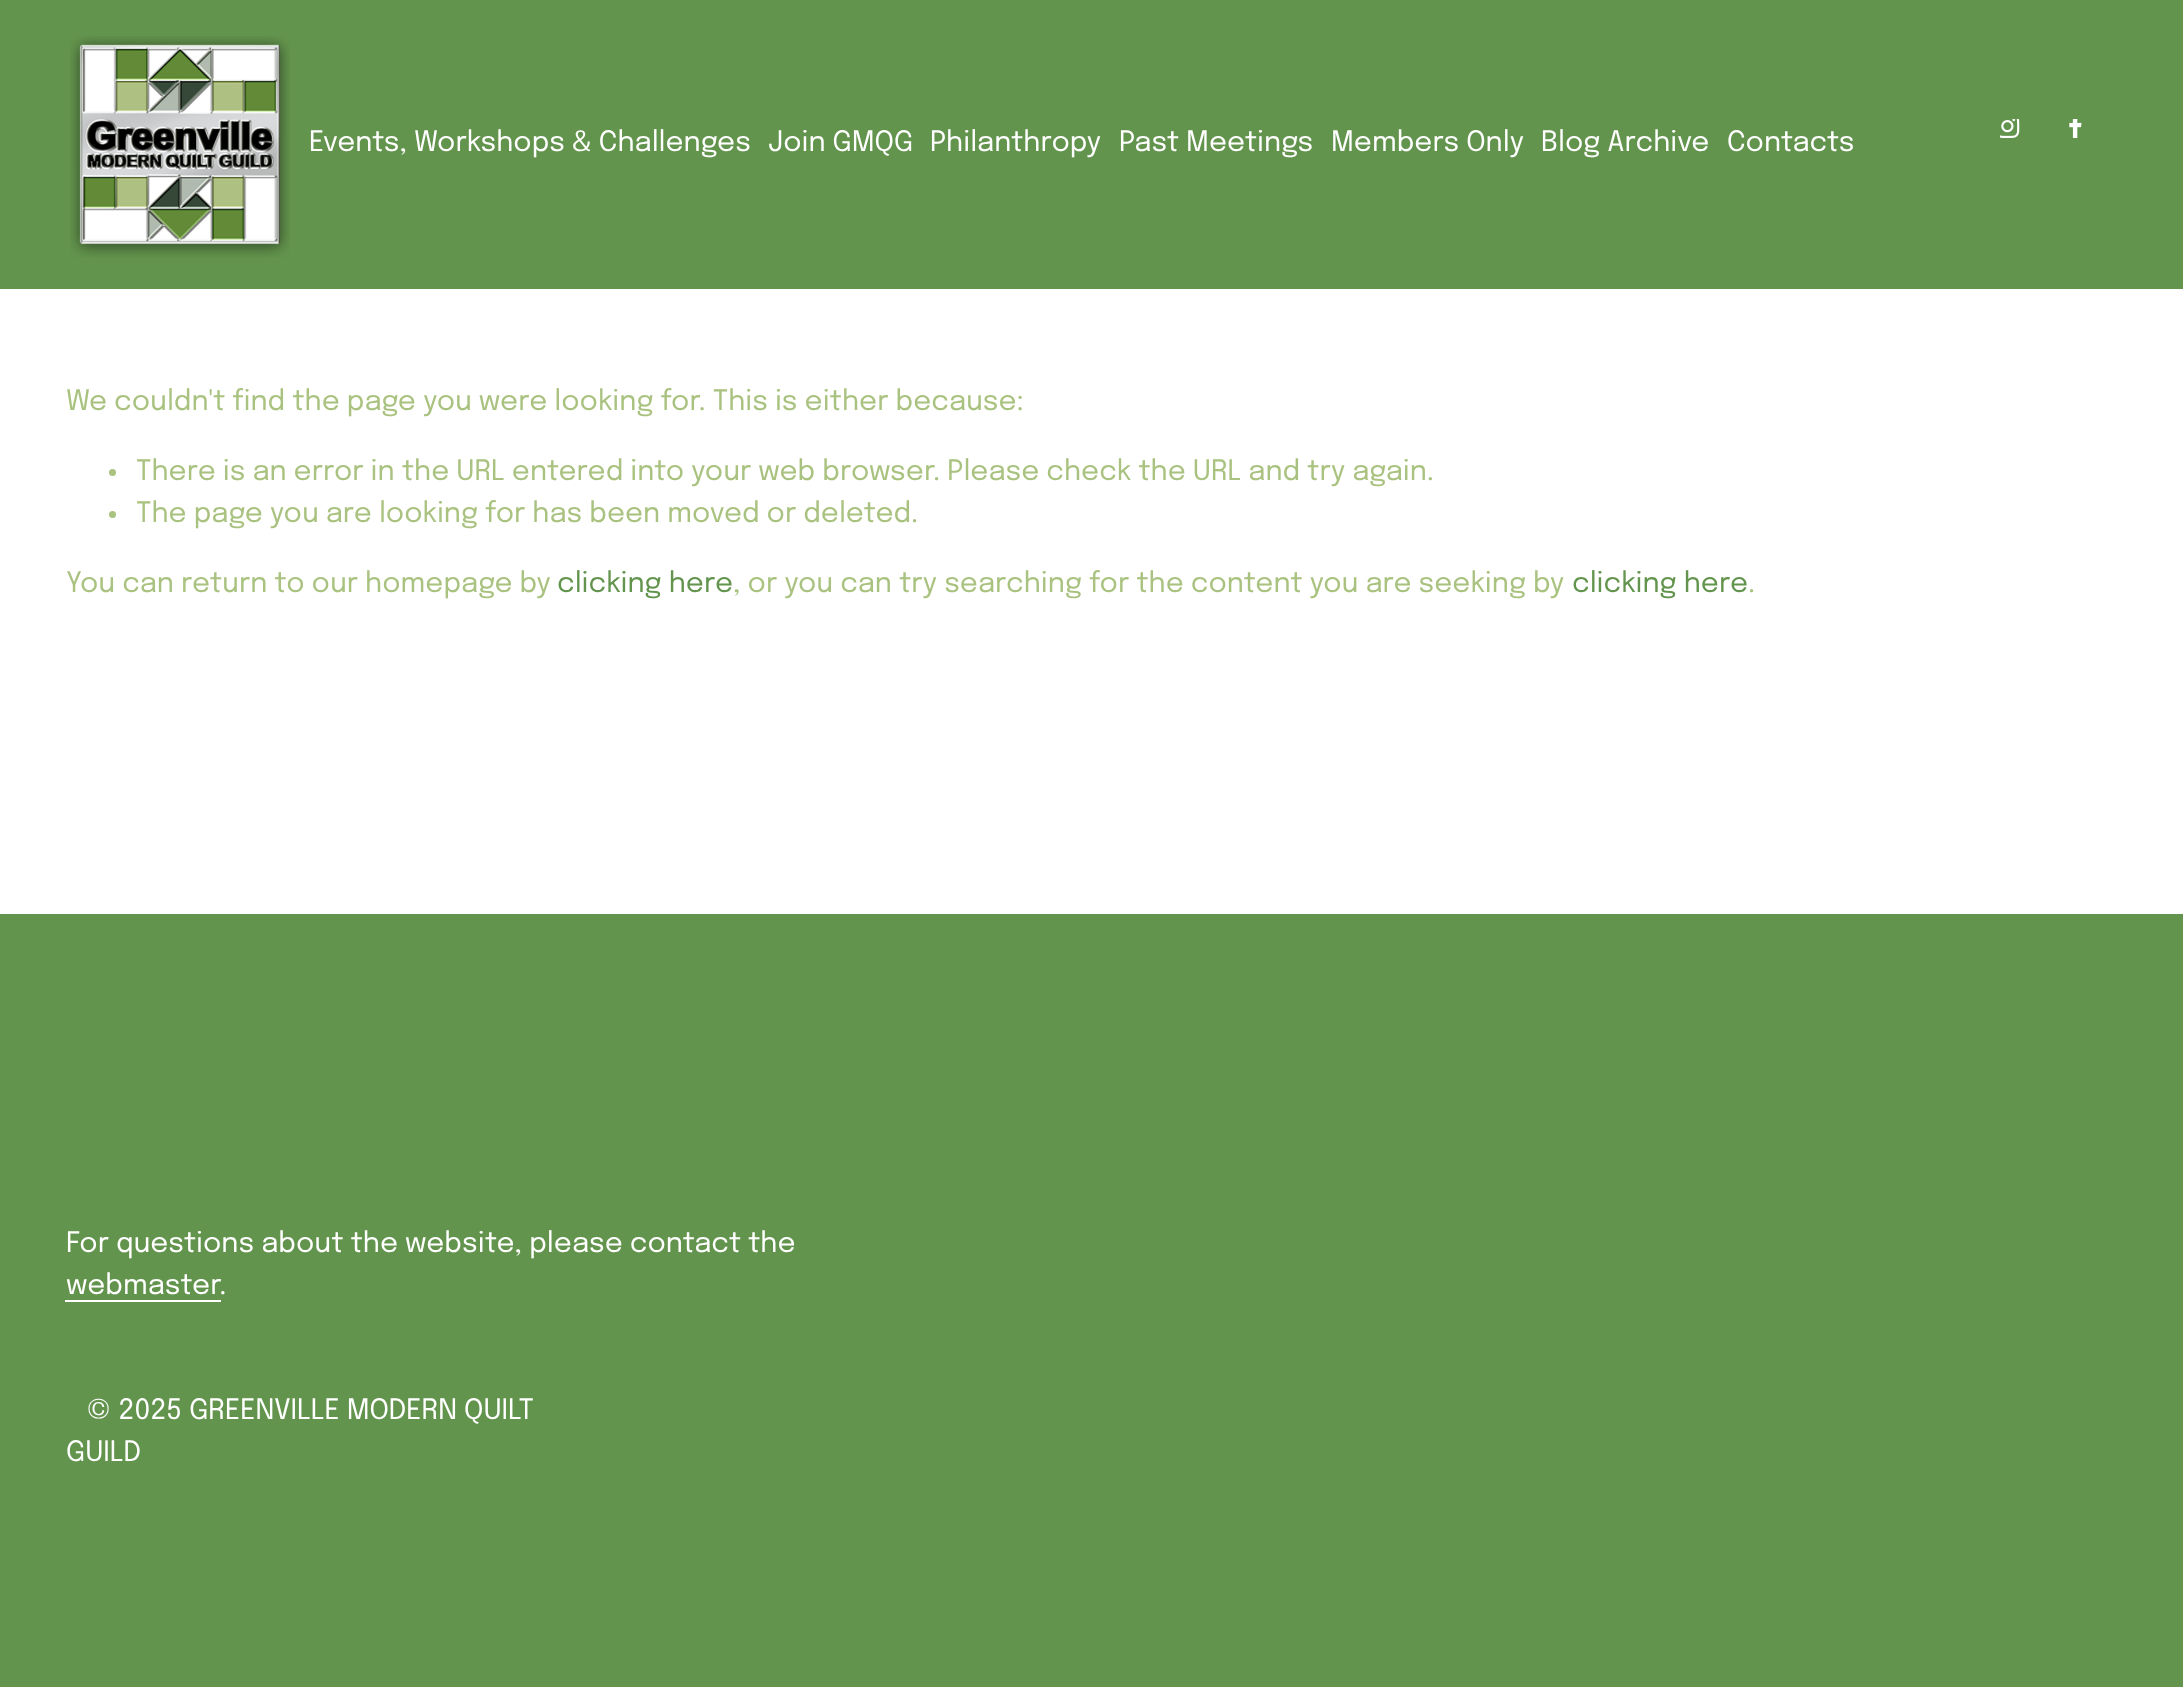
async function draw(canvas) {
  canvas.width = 2183;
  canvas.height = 1687;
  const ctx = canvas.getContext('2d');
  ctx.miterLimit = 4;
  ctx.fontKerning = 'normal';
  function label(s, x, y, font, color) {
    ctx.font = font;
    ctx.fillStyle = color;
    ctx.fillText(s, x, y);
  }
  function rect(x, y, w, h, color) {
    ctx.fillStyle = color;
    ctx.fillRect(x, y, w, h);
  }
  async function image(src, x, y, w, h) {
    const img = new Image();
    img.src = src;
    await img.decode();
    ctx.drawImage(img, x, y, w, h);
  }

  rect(0, 0, 2183, 1687, '#fff');
  rect(0, 0, 2183, 289, '#63944d');
  await image('assets/img1.png', 70, 36, 220, 222);
  label('Events, Workshops & Challenges', 309, 151, '28px Epilogue', '#fff');
  label('Join GMQG', 768, 151, '28px Epilogue', '#fff');
  label('Philanthropy', 930, 151, '28px Epilogue', '#fff');
  label('Past Meetings', 1119, 151, '28px Epilogue', '#fff');
  label('Members Only', 1331, 151, '28px Epilogue', '#fff');
  label('Blog Archive', 1541, 151, '28px Epilogue', '#fff');
  label('Contacts', 1727, 151, '28px Epilogue', '#fff');
  await image('assets/img2.png', 2000, 119, 20, 19);
  await image('assets/img3.png', 2069, 119, 13, 19);
  label('We couldn\'t find the page you were looking for. This is either because:', 66, 410, '28px Epilogue', '#a9c27f');
  ctx.beginPath();
  ctx.arc(112.5, 472.5, 3.5, 0, 2 * Math.PI);
  ctx.fill();
  label('There is an error in the URL entered into your web browser. Please check the URL and try again.', 136, 480, '28px Epilogue', '#a9c27f');
  ctx.beginPath();
  ctx.arc(112.5, 514.5, 3.5, 0, 2 * Math.PI);
  ctx.fill();
  label('The page you are looking for has been moved or deleted.', 136, 522, '28px Epilogue', '#a9c27f');
  label('You can return to our homepage by', 66, 592, '28px Epilogue', '#a9c27f');
  label('clicking here', 557, 592, '28px Epilogue', '#63944d');
  label(', or you can try searching for the content you are seeking by', 733, 592, '28px Epilogue', '#a9c27f');
  label('clicking here', 1572, 592, '28px Epilogue', '#63944d');
  label('.', 1748, 592, '28px Epilogue', '#a9c27f');
  rect(0, 914, 2183, 773, '#63944d');
  label('For questions about the website, please contact the', 66, 1252, '28px Epilogue', '#fff');
  label('webmaster.', 66, 1294, '28px Epilogue', '#fff');
  rect(65, 1300, 156, 2, '#fff');
  label('© 2025 GREENVILLE MODERN QUILT', 87, 1419, '28px Epilogue', '#fff');
  label('GUILD', 66, 1461, '28px Epilogue', '#fff');
}

draw(document.querySelector('canvas'));
